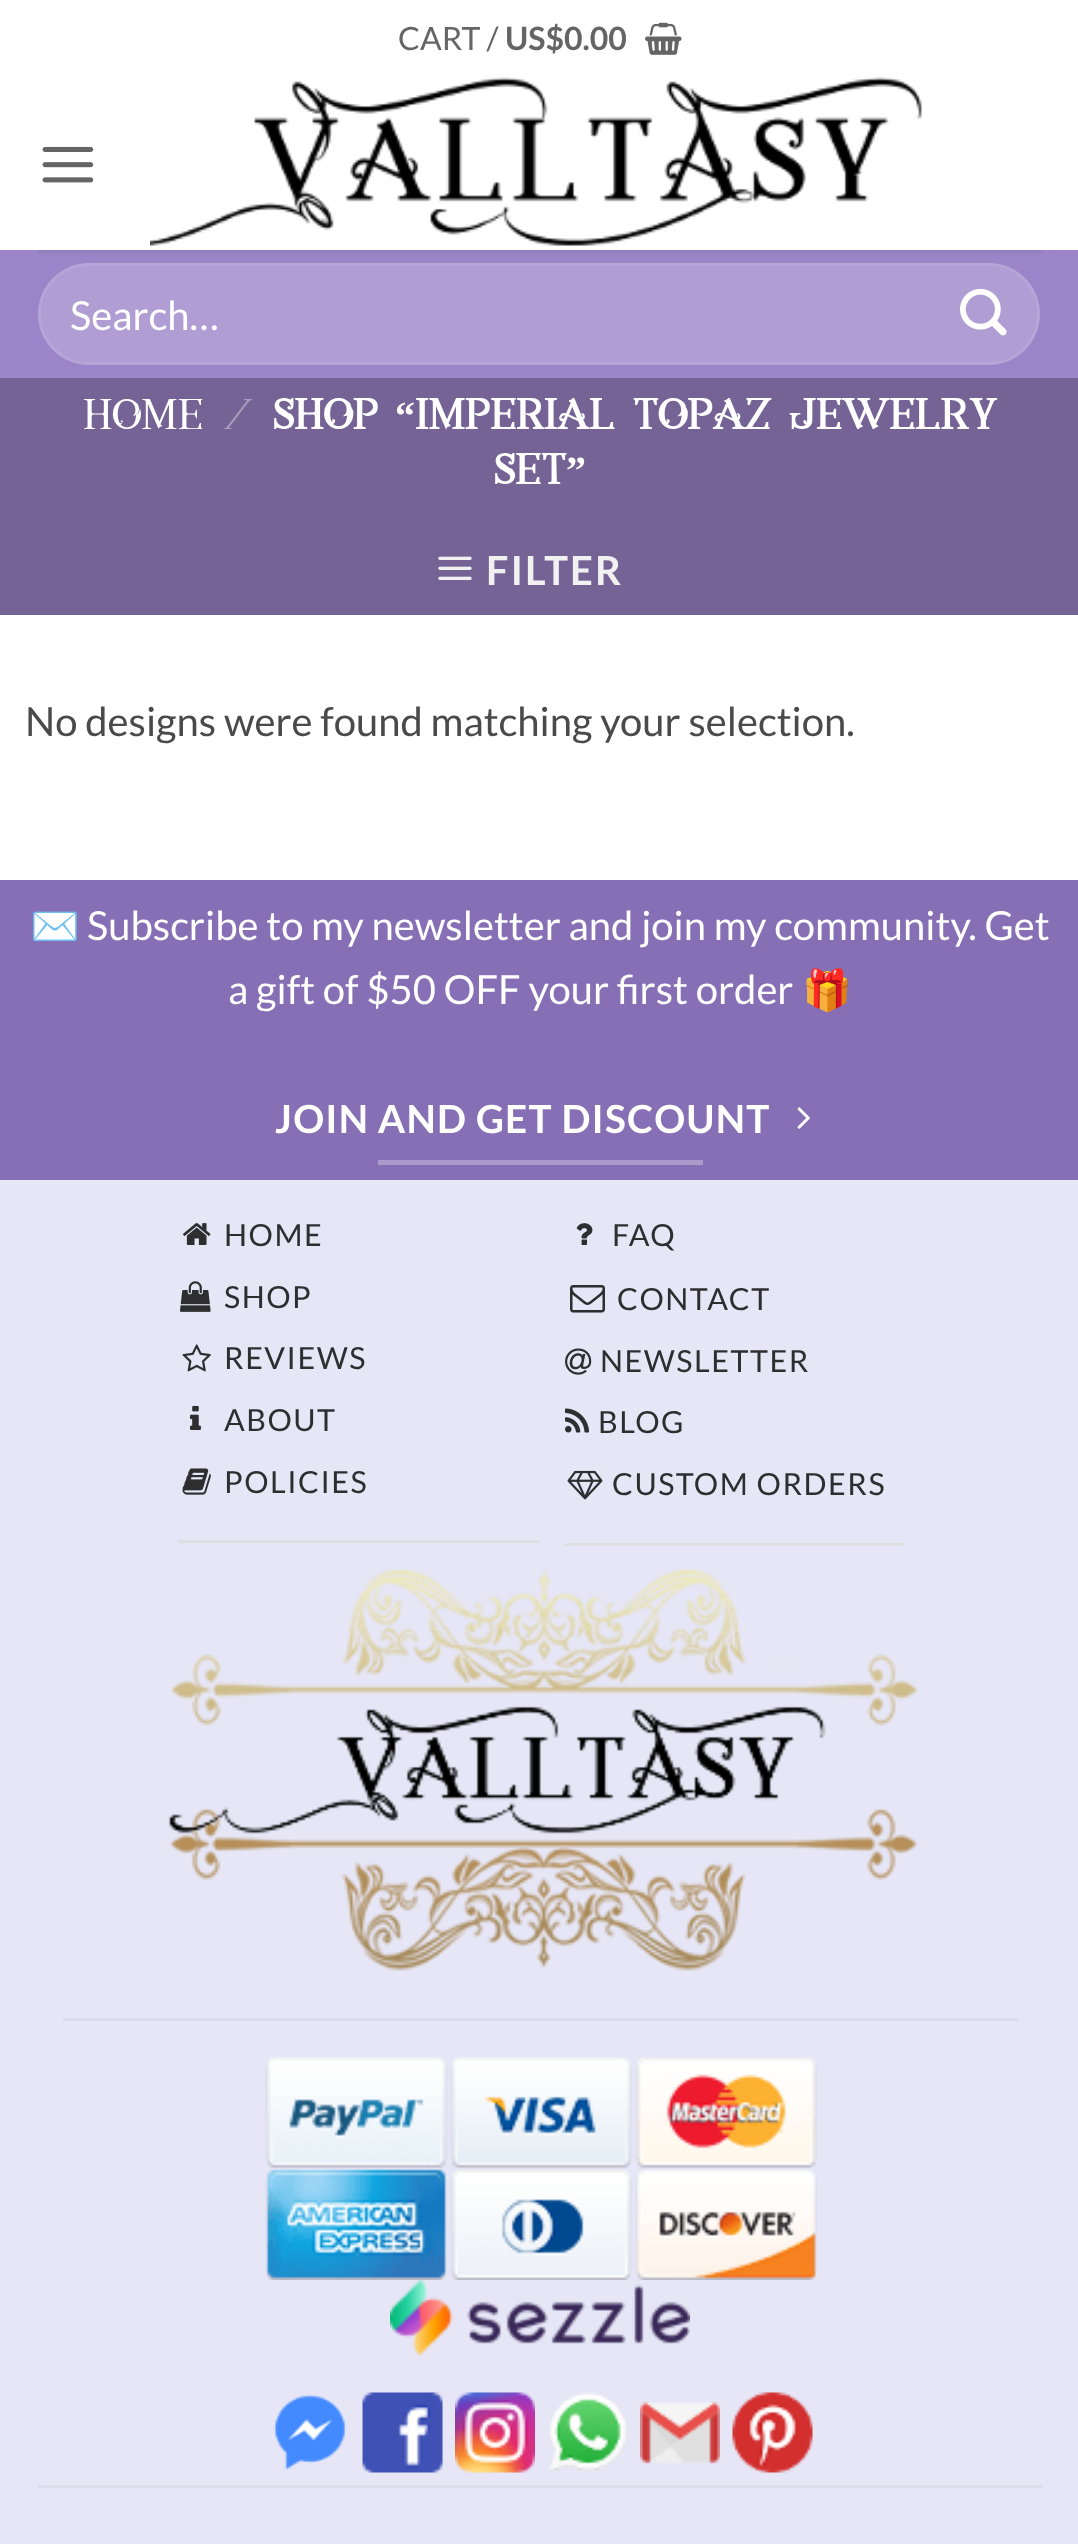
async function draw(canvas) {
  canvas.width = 1078;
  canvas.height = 2544;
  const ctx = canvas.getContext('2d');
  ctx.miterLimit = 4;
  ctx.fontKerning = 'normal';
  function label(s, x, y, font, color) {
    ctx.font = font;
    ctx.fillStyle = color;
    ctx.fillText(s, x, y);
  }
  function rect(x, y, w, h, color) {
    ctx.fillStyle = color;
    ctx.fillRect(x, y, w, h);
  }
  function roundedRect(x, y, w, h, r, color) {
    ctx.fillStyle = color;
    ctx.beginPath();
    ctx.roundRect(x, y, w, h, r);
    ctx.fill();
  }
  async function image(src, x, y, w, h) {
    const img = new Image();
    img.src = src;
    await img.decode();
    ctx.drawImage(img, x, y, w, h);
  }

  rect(0, 0, 1078, 2544, '#fff');
  label('CART /', 398, 50, '32px Lato', '#656565');
  label('US$0.00', 505, 50, 'bold 32px Lato', '#656565');
  await image('assets/img1.png', 645, 22, 37, 33);
  await image('assets/img2.png', 42, 146, 52, 37);
  await image('assets/img3.png', 150, 77, 772, 169);
  rect(0, 250, 1078, 128, '#9b85c8');
  rect(38, 250, 1005, 3, '#937fbb');
  roundedRect(38, 263, 1002, 102, 51, '#af9dd3');
  ctx.beginPath();
  ctx.roundRect(39.5, 264.5, 999, 99, 49.5);
  ctx.strokeStyle = '#ffffff17';
  ctx.lineWidth = 3;
  ctx.stroke();
  label('Search…', 70, 330, '40px Lato', '#fff');
  await image('assets/img4.png', 960, 288, 47, 48);
  rect(0, 378, 1078, 237, '#756396');
  label('home', 83, 429, '40px "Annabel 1"', '#fff');
  label('/', 223, 429, '40px "Annabel 1"', '#a59abb');
  label('shop', 273, 429, 'bold 40px "Annabel 1"', '#fff');
  label('“', 395, 429, 'bold 40px Liberation Serif', '#fff');
  label('imperial topaz jewelry', 415, 429, 'bold 40px "Annabel 1"', '#fff');
  label('set', 494, 484, 'bold 40px "Annabel 1"', '#fff');
  label('”', 566, 484, 'bold 40px Liberation Serif', '#fff');
  await image('assets/img5.png', 438, 556, 34, 24);
  ctx.letterSpacing = '2px';
  label('FILTER', 486, 585, 'bold 40px Lato', '#f1f1f1');
  ctx.letterSpacing = '0px';
  label('No designs were found matching your selection.', 25, 736, '40px Lato', '#4a4a4a');
  rect(0, 880, 1078, 300, '#866fb4');
  label('✉️', 30, 940, '40px Noto Color Emoji', '#fff');
  label('Subscribe to my newsletter and join my community. Get', 87, 940, '40px Lato', '#fff');
  label('a gift of $50 OFF your first order', 228, 1004, '40px Lato', '#fff');
  label('🎁', 802, 1004, '40px Noto Color Emoji', '#fff');
  ctx.letterSpacing = '1.2px';
  label('JOIN AND GET DISCOUNT', 275, 1133, 'bold 38.75px Lato', '#fff');
  await image('assets/img6.png', 797, 1107, 13, 22);
  rect(378, 1160, 325, 5, '#aa9acb');
  rect(0, 1180, 1078, 1364, '#e6e6f6');
  rect(178, 1540, 362, 3, '#dfdfe2');
  await image('assets/img7.png', 183, 1223, 28, 22);
  ctx.letterSpacing = '1.5px';
  label('HOME', 224, 1246, '30.5px Lato', '#2e2e31');
  await image('assets/img8.png', 180, 1281, 31, 31);
  label('SHOP', 224, 1308, '30.5px Lato', '#2e2e31');
  await image('assets/img9.png', 182, 1344, 29, 28);
  label('REVIEWS', 224, 1369, '30.5px Lato', '#2e2e31');
  await image('assets/img10.png', 190, 1405, 11, 25);
  label('ABOUT', 224, 1431, '30.5px Lato', '#2e2e31');
  await image('assets/img11.png', 182, 1468, 29, 27);
  label('POLICIES', 224, 1493, '30.5px Lato', '#2e2e31');
  rect(565, 1543, 338, 3, '#dfdfe2');
  await image('assets/img12.png', 576, 1223, 17, 22);
  label('FAQ', 612, 1246, '30.5px Lato', '#2e2e31');
  await image('assets/img13.png', 570, 1285, 35, 28);
  label('CONTACT', 617, 1310, '30.5px Lato', '#2e2e31');
  await image('assets/img14.png', 565, 1348, 27, 27);
  label('NEWSLETTER', 600, 1372, '30.5px Lato', '#2e2e31');
  await image('assets/img15.png', 565, 1408, 24, 25);
  label('BLOG', 598, 1433, '30.5px Lato', '#2e2e31');
  await image('assets/img16.png', 567, 1470, 36, 30);
  label('CUSTOM ORDERS', 612, 1495, '30.5px Lato', '#2e2e31');
  await image('assets/img17.png', 168, 1569, 750, 402);
  rect(63, 2018, 955, 3, '#dcdcea');
  await image('assets/img18.png', 265, 2057, 552, 223);
  await image('assets/img19.png', 390, 2280, 300, 75);
  await image('assets/img20.png', 273, 2394, 74, 76);
  await image('assets/img21.png', 362, 2392, 81, 81);
  await image('assets/img22.png', 455, 2392, 80, 81);
  await image('assets/img23.png', 549, 2392, 78, 80);
  await image('assets/img24.png', 640, 2401, 80, 63);
  await image('assets/img25.png', 732, 2392, 81, 81);
  rect(38, 2485, 1005, 3, '#dcdcea');
}

draw(document.querySelector('canvas'));
